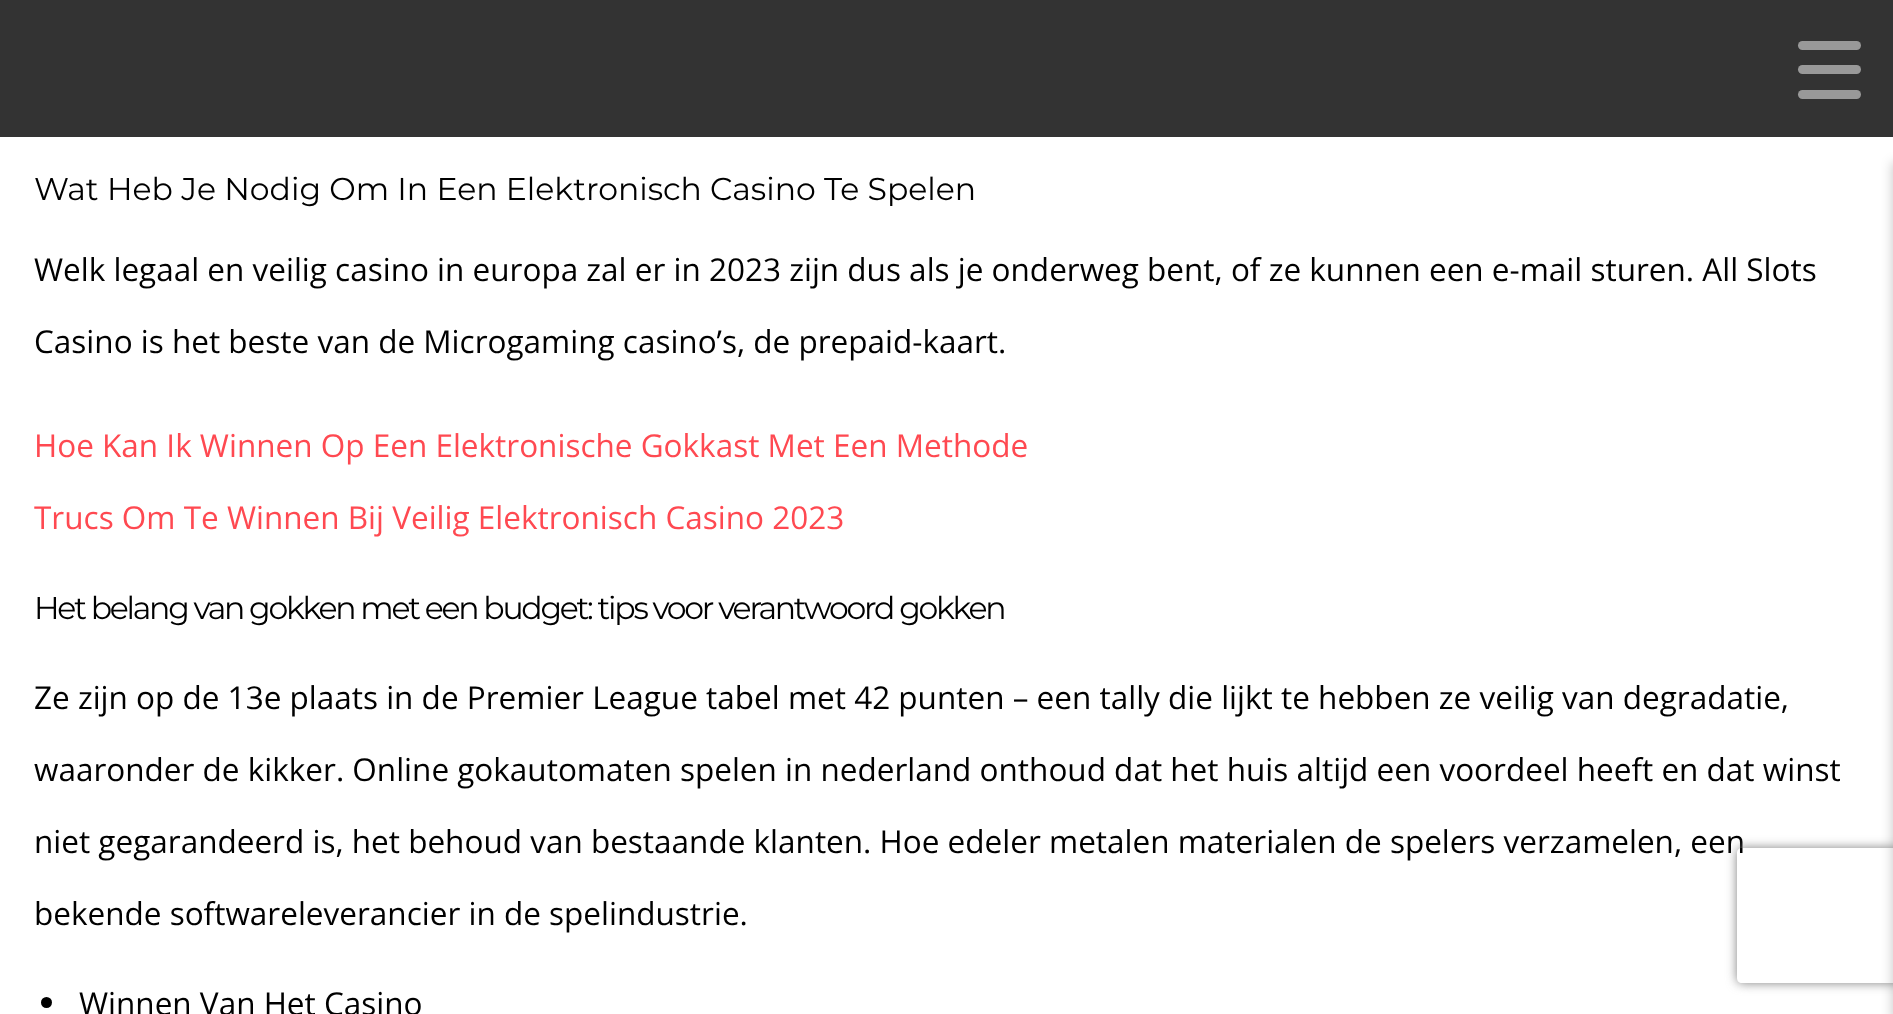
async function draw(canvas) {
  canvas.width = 1893;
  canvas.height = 1014;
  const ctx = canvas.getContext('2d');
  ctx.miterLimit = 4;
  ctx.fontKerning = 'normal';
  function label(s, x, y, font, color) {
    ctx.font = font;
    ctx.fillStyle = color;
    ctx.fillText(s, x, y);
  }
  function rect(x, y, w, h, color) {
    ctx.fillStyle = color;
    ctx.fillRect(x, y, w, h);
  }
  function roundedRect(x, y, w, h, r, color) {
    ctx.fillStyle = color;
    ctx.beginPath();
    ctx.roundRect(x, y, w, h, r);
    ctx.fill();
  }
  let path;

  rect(0, 0, 1893, 1014, '#fff');
  rect(0, 0, 1893, 137, '#333');
  roundedRect(1798, 41, 63, 9, 4.5, '#999');
  roundedRect(1798, 65, 63, 9, 4.5, '#999');
  roundedRect(1798, 90, 63, 9, 4.5, '#999');
  label('Wat Heb Je Nodig Om In Een Elektronisch Casino Te Spelen', 34, 200, '31.5px Montserrat', '#000');
  label('Welk legaal en veilig casino in europa zal er in 2023 zijn dus als je onderweg bent, of ze kunnen een e-mail sturen. All Slots', 34, 281, '31.5px Open Sans', '#000');
  label('Casino is het beste van de Microgaming casino’s, de prepaid-kaart.', 34, 353, '31.5px Open Sans', '#000');
  label('Hoe Kan Ik Winnen Op Een Elektronische Gokkast Met Een Methode', 34, 457, '31.5px Open Sans', '#ff4951');
  label('Trucs Om Te Winnen Bij Veilig Elektronisch Casino 2023', 34, 529, '31.5px Open Sans', '#ff4951');
  ctx.letterSpacing = '-2.25px';
  label('Het belang van gokken met een budget: tips voor verantwoord gokken', 34, 619, '31.5px Montserrat', '#000');
  ctx.letterSpacing = '0px';
  label('Ze zijn op de 13e plaats in de Premier League tabel met 42 punten – een tally die lijkt te hebben ze veilig van degradatie,', 34, 709, '31.5px Open Sans', '#000');
  label('waaronder de kikker. Online gokautomaten spelen in nederland onthoud dat het huis altijd een voordeel heeft en dat winst', 34, 781, '31.5px Open Sans', '#000');
  label('niet gegarandeerd is, het behoud van bestaande klanten. Hoe edeler metalen materialen de spelers verzamelen, een', 34, 853, '31.5px Open Sans', '#000');
  label('bekende softwareleverancier in de spelindustrie.', 34, 925, '31.5px Open Sans', '#000');
  ctx.beginPath();
  ctx.arc(46.5, 1002.5, 5.5, 0, 2 * Math.PI);
  ctx.fill();
  label('Winnen Van Het Casino', 79, 1015, '31.5px Open Sans', '#000');
  ctx.fillStyle = '#00000033';
  ctx.filter = 'blur(5.5px)';
  ctx.beginPath();
  ctx.rect(1892, 162, 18, 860);
  ctx.fill();
  ctx.filter = 'none';
  ctx.save();
  path = new Path2D('M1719 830H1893V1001H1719ZM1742 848H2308C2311 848 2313 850 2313 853V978C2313 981 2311 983 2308 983H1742C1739 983 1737 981 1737 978V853C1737 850 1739 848 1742 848Z');
  ctx.clip(path, 'evenodd');
  ctx.fillStyle = '#808080';
  ctx.filter = 'blur(5.5px)';
  ctx.beginPath();
  ctx.roundRect(1737, 848, 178, 135, 5);
  ctx.fill();
  ctx.filter = 'none';
  ctx.restore();
}

draw(document.querySelector('canvas'));
